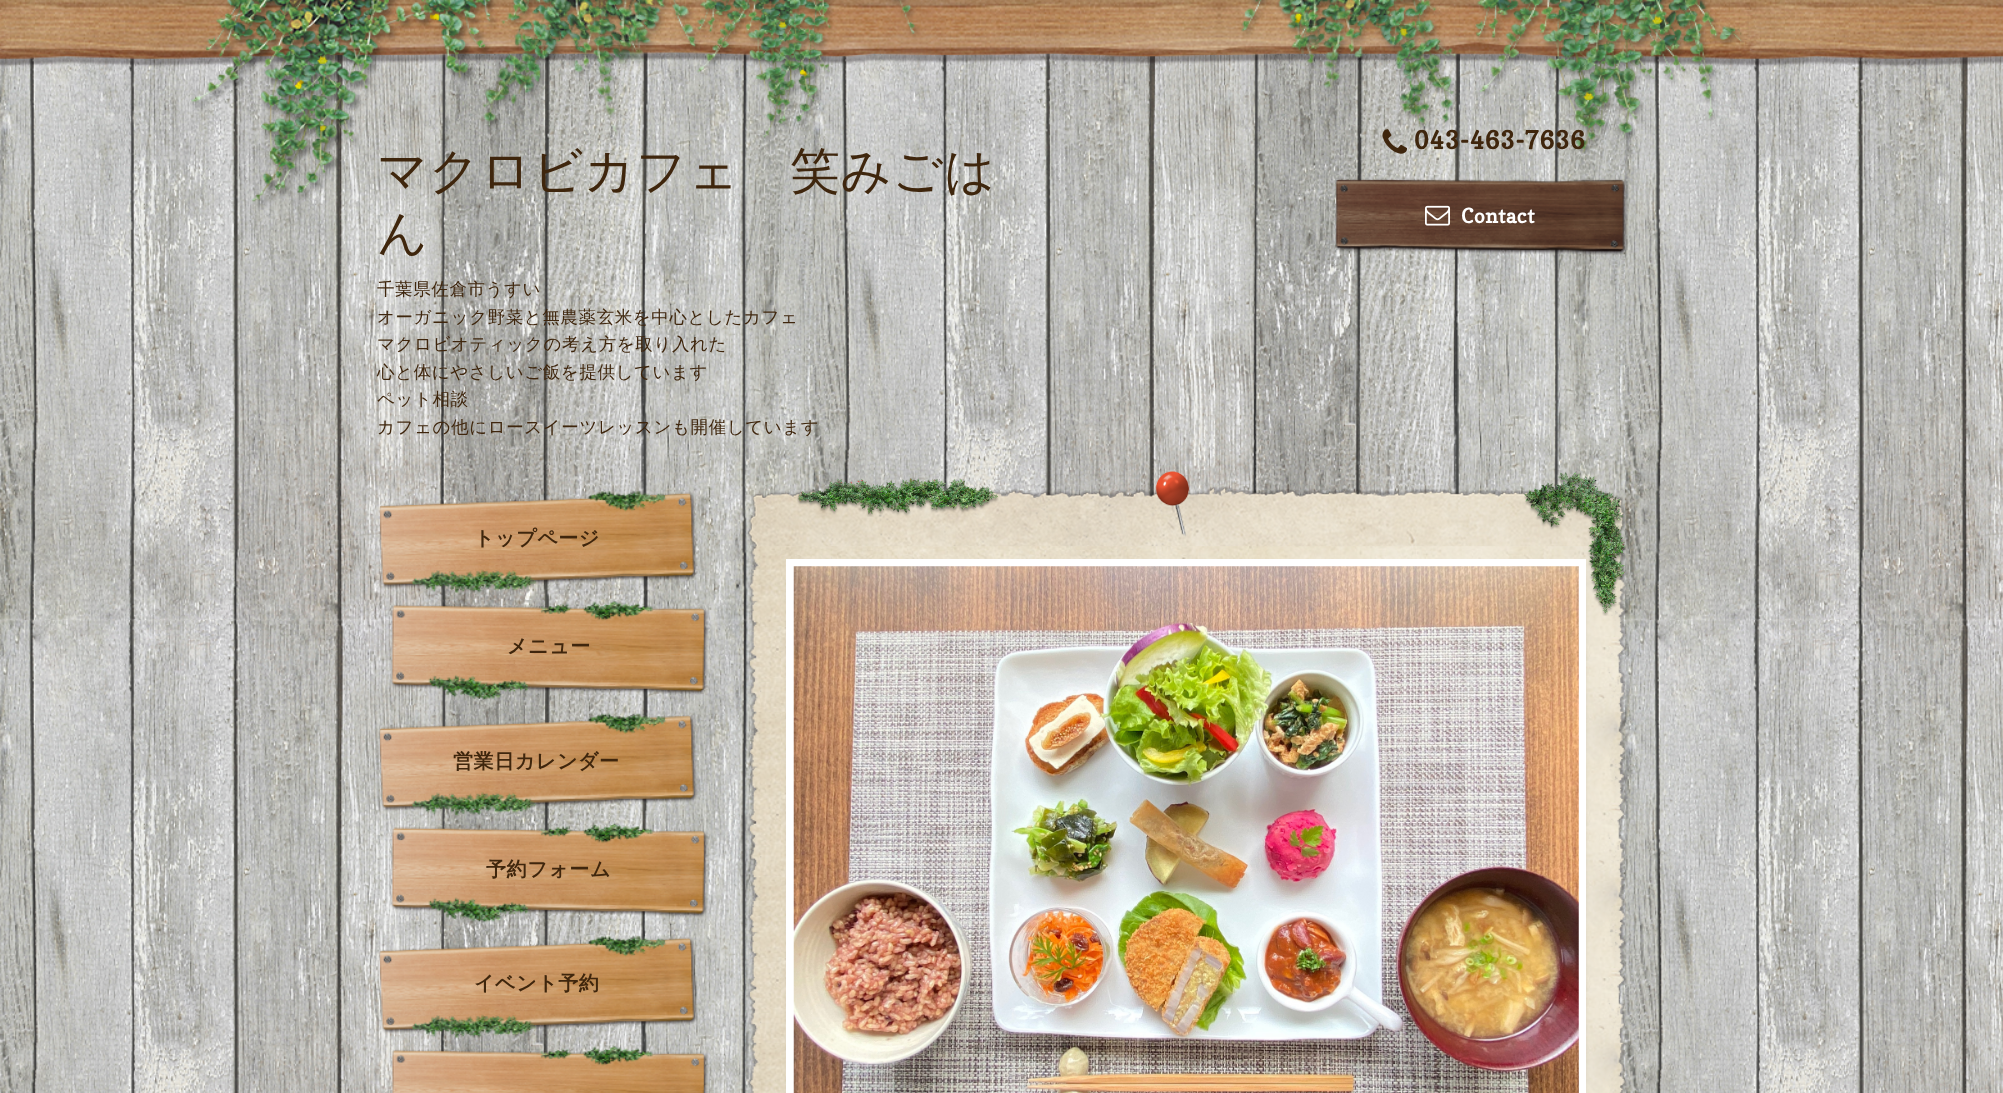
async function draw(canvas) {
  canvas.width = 2003;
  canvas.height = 1093;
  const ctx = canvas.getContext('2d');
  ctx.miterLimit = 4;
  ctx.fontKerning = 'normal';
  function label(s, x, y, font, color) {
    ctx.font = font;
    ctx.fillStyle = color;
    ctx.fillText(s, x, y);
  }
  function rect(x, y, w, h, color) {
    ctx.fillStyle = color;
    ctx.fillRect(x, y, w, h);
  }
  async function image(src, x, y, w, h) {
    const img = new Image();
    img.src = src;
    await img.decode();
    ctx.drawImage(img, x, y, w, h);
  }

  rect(0, 0, 2003, 1093, '#fff');
  await image('assets/img1.png', 0, 48, 2003, 1045);
  await image('assets/img2.png', 0, 0, 2003, 67);
  await image('assets/img3.png', 191, 0, 1558, 209);
  ctx.letterSpacing = '0.6px';
  label('マクロビカフェ　笑みごは', 377, 188, '500 50px WenQuanYi Zen Hei', '#3f260d');
  label('ん', 377, 250, '500 50px WenQuanYi Zen Hei', '#3f260d');
  label('千葉県佐倉市うすい', 377, 295, '500 17.5px WenQuanYi Zen Hei', '#3f260d');
  label('オーガニック野菜と無農薬玄米を中心としたカフェ', 377, 323, '500 17.5px WenQuanYi Zen Hei', '#3f260d');
  label('マクロビオティックの考え方を取り入れた', 377, 350, '500 17.5px WenQuanYi Zen Hei', '#3f260d');
  label('心と体にやさしいご飯を提供しています', 377, 378, '500 17.5px WenQuanYi Zen Hei', '#3f260d');
  label('ペット相談', 377, 405, '500 17.5px WenQuanYi Zen Hei', '#3f260d');
  label('カフェの他にロースイーツレッスンも開催しています', 377, 433, '500 17.5px WenQuanYi Zen Hei', '#3f260d');
  await image('assets/img4.png', 1382, 129, 25, 25);
  label('043-463-7636', 1414, 149, 'bold 25px Copse', '#3f260d');
  await image('assets/img5.png', 1335, 178, 293, 77);
  await image('assets/img6.png', 1425, 205, 25, 21);
  label('Contact', 1461, 223, 'bold 20px Copse', '#fff');
  await image('assets/img7.png', 378, 490, 320, 104);
  label('トップページ', 474, 545, 'bold 20px WenQuanYi Zen Hei', '#3f260d');
  await image('assets/img8.png', 391, 600, 317, 100);
  label('メニュー', 507, 653, 'bold 20px WenQuanYi Zen Hei', '#3f260d');
  await image('assets/img9.png', 378, 712, 320, 104);
  label('営業日カレンダー', 453, 768, 'bold 20px WenQuanYi Zen Hei', '#3f260d');
  await image('assets/img10.png', 391, 823, 317, 100);
  label('予約フォーム', 486, 876, 'bold 20px WenQuanYi Zen Hei', '#3f260d');
  await image('assets/img11.png', 378, 935, 320, 104);
  label('イベント予約', 474, 990, 'bold 20px WenQuanYi Zen Hei', '#3f260d');
  await image('assets/img12.png', 391, 1045, 317, 48);
  await image('assets/img13.png', 746, 471, 881, 79);
  await image('assets/img14.png', 797, 478, 202, 39);
  await image('assets/img16.png', 746, 546, 882, 547);
  ctx.fillStyle = '#000000a6';
  ctx.filter = 'blur(4.5px)';
  ctx.beginPath();
  ctx.rect(794, 575, 785, 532);
  ctx.fill();
  ctx.filter = 'none';
  ctx.strokeStyle = '#fff';
  ctx.lineWidth = 8;
  ctx.strokeRect(790, 563, 792, 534);
  await image('assets/img17.png', 793, 566, 786, 527);
  await image('assets/img15.png', 1524, 471, 102, 145);
}

draw(document.querySelector('canvas'));
